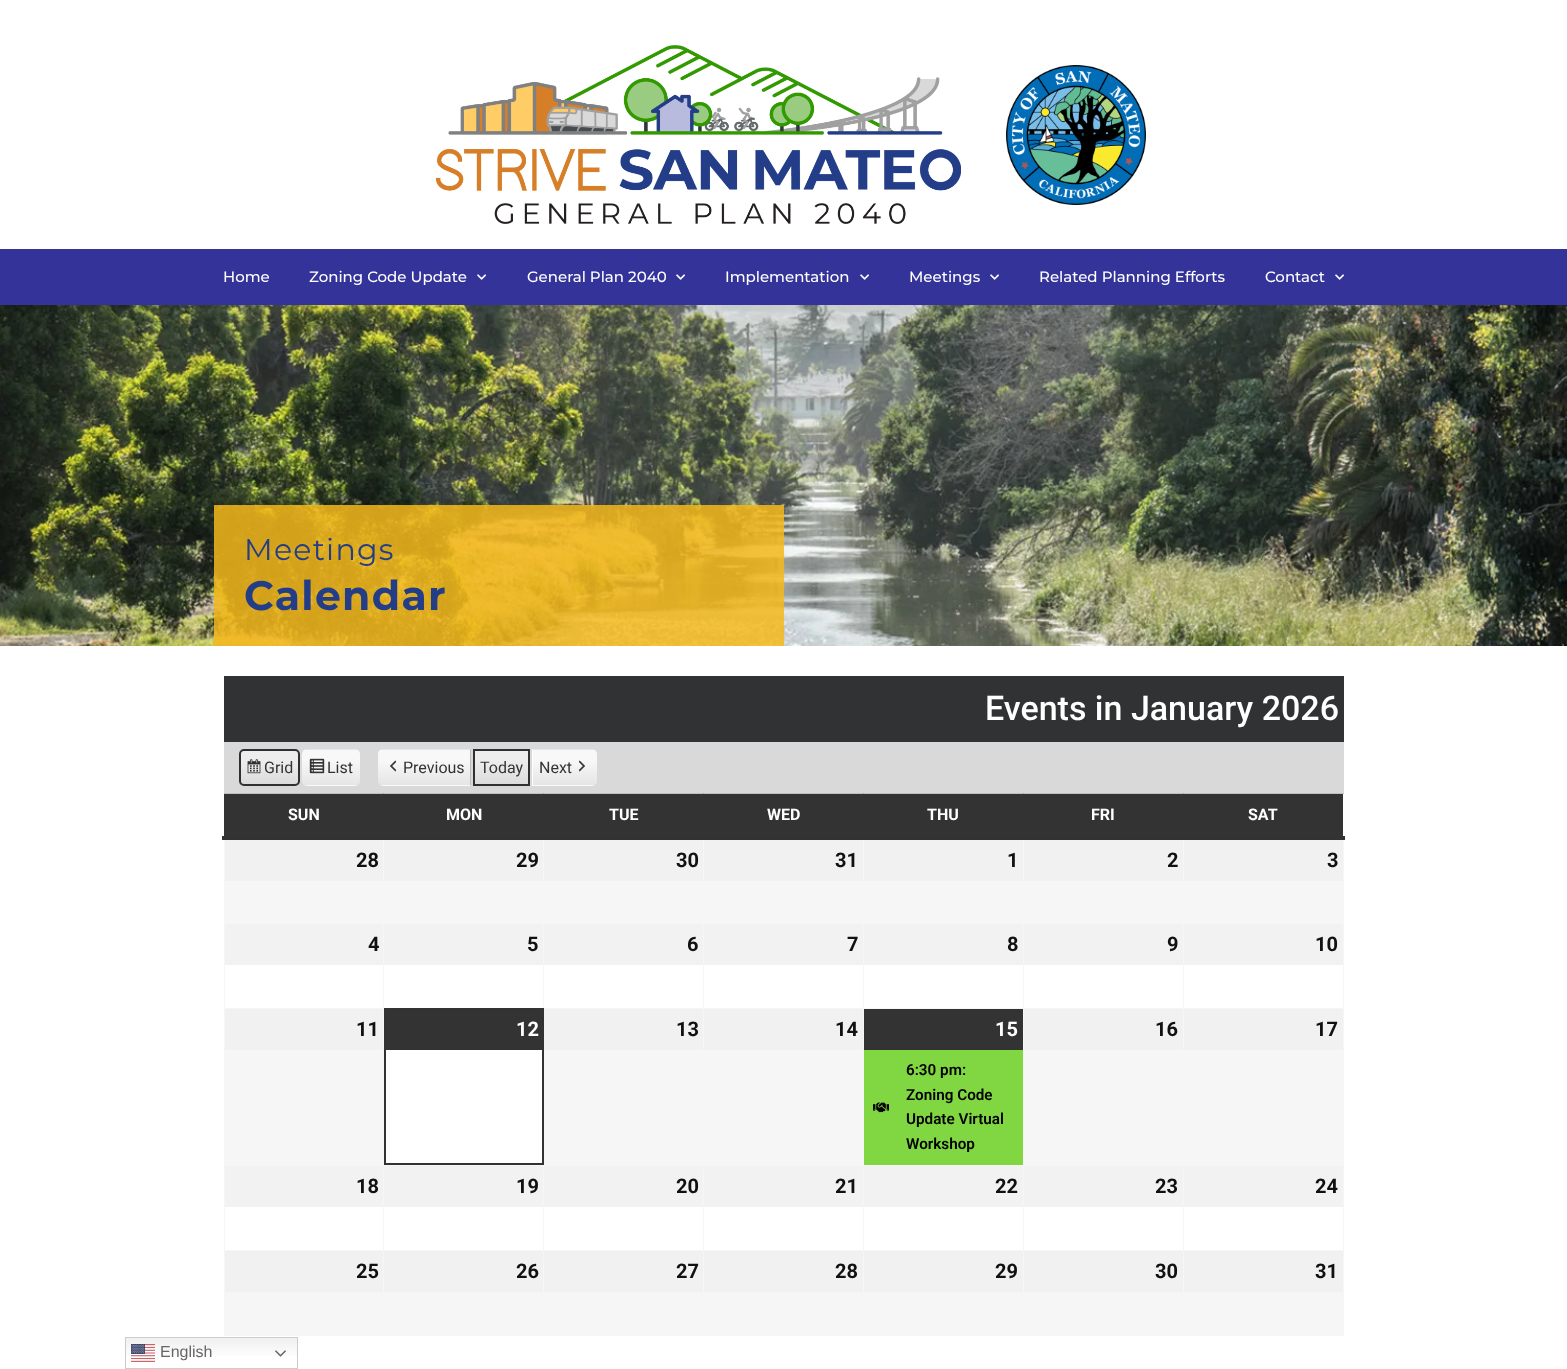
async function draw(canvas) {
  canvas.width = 1567;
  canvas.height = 1369;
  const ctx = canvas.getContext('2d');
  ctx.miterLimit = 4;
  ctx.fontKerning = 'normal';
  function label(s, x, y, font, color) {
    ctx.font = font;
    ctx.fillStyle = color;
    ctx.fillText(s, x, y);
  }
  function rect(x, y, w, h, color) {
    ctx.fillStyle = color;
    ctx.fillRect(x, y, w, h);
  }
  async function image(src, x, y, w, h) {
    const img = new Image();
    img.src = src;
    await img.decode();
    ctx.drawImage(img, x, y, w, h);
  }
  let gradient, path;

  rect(0, 0, 1567, 1369, '#fff');
  rect(224, 793, 1120, 1, '#c0c0c0');
  rect(383, 793, 1, 1, '#a0a0a0');
  rect(543, 793, 1, 1, '#a0a0a0');
  rect(703, 793, 1, 1, '#a0a0a0');
  rect(863, 793, 1, 1, '#a0a0a0');
  rect(1023, 793, 1, 1, '#a0a0a0');
  await image('assets/img1.png', 436, 45, 525, 179);
  await image('assets/img2.png', 1006, 65, 140, 140);
  rect(0, 249, 1567, 56, '#339');
  label('Home', 223, 282, '500 15px Montserrat', '#fff');
  label('Zoning Code Update', 309, 282, '500 15px Montserrat', '#fff');
  await image('assets/img3.png', 477, 274, 9, 6);
  label('General Plan 2040', 527, 282, '500 15px Montserrat', '#fff');
  await image('assets/img3.png', 676, 274, 9, 6);
  label('Implementation', 725, 282, '500 15px Montserrat', '#fff');
  await image('assets/img3.png', 860, 274, 9, 6);
  label('Meetings', 909, 282, '500 15px Montserrat', '#fff');
  await image('assets/img3.png', 990, 274, 9, 6);
  label('Related Planning Efforts', 1039, 282, '500 15px Montserrat', '#fff');
  label('Contact', 1265, 282, '500 15px Montserrat', '#fff');
  await image('assets/img3.png', 1335, 274, 9, 6);
  await image('assets/img4.png', 0, 305, 1567, 341);
  rect(214, 505, 570, 141, '#f5b81bd9');
  ctx.letterSpacing = '1.25px';
  label('Meetings', 244, 560, '30px Montserrat', '#233d88');
  label('Calendar', 244, 610, 'bold 41px Montserrat', '#233d88');
  rect(224, 676, 1120, 66, '#313233');
  ctx.letterSpacing = '0px';
  label('Events in January 2026', 985, 720, '500 34px Roboto', '#fff');
  rect(224, 742, 1120, 51, '#d9d9d9');
  ctx.save();
  ctx.beginPath();
  ctx.roundRect(239, 749, 61, 37, 5);
  ctx.clip();
  gradient = ctx.createLinearGradient(270, 785, 270, 750);
  gradient.addColorStop(0, '#dbdbdb');
  gradient.addColorStop(0.7, '#ededed');
  ctx.fillStyle = gradient;
  ctx.fillRect(239, 750, 61, 35);
  ctx.restore();
  await image('assets/img5.png', 247, 759, 14, 15);
  ctx.beginPath();
  ctx.roundRect(240, 750, 59, 35, 4);
  ctx.strokeStyle = '#303030';
  ctx.lineWidth = 2;
  ctx.stroke();
  label('Grid', 264, 773, '16px Roboto', '#333');
  ctx.save();
  ctx.beginPath();
  ctx.roundRect(302, 749, 58, 37, 5);
  ctx.clip();
  gradient = ctx.createLinearGradient(331, 750, 331, 715);
  gradient.addColorStop(0, '#e5e5e5');
  gradient.addColorStop(0.7, '#f8f8f8');
  ctx.fillStyle = gradient;
  ctx.fillRect(302, 749, 58, 1);
  gradient = ctx.createLinearGradient(331, 785, 331, 750);
  gradient.addColorStop(0, '#e5e5e5');
  gradient.addColorStop(0.7, '#f8f8f8');
  ctx.fillStyle = gradient;
  ctx.fillRect(302, 750, 58, 35);
  gradient = ctx.createLinearGradient(331, 820, 331, 785);
  gradient.addColorStop(0, '#e5e5e5');
  gradient.addColorStop(0.7, '#f8f8f8');
  ctx.fillStyle = gradient;
  ctx.fillRect(302, 785, 58, 1);
  ctx.restore();
  await image('assets/img6.png', 309, 758, 16, 16);
  label('List', 327, 773, '16px Roboto', '#333');
  ctx.save();
  ctx.beginPath();
  ctx.roundRect(378, 749, 93, 37, [5, 0, 0, 5]);
  ctx.clip();
  gradient = ctx.createLinearGradient(425, 750, 425, 715);
  gradient.addColorStop(0, '#e5e5e5');
  gradient.addColorStop(0.7, '#f8f8f8');
  ctx.fillStyle = gradient;
  ctx.fillRect(378, 749, 93, 1);
  gradient = ctx.createLinearGradient(425, 785, 425, 750);
  gradient.addColorStop(0, '#e5e5e5');
  gradient.addColorStop(0.7, '#f8f8f8');
  ctx.fillStyle = gradient;
  ctx.fillRect(378, 750, 92, 35);
  gradient = ctx.createLinearGradient(425, 820, 425, 785);
  gradient.addColorStop(0, '#e5e5e5');
  gradient.addColorStop(0.7, '#f8f8f8');
  ctx.fillStyle = gradient;
  ctx.fillRect(378, 785, 93, 1);
  ctx.restore();
  ctx.fillStyle = '#bbb';
  path = new Path2D('M471 749L470 750V785L471 786Z');
  ctx.fill(path);
  await image('assets/img7.png', 390, 760, 7, 12);
  label('Previous', 403, 773, '16px Roboto', '#333');
  gradient = ctx.createLinearGradient(502, 785, 502, 750);
  gradient.addColorStop(0, '#dbdbdb');
  gradient.addColorStop(0.7, '#ededed');
  ctx.fillStyle = gradient;
  ctx.fillRect(475, 751, 53, 33);
  ctx.strokeRect(474, 750, 55, 35);
  label('Today', 480, 773, '16px Roboto', '#333');
  ctx.save();
  ctx.beginPath();
  ctx.roundRect(532, 749, 65, 37, [0, 5, 5, 0]);
  ctx.clip();
  gradient = ctx.createLinearGradient(565, 750, 565, 715);
  gradient.addColorStop(0, '#e5e5e5');
  gradient.addColorStop(0.7, '#f8f8f8');
  ctx.fillStyle = gradient;
  ctx.fillRect(532, 749, 65, 1);
  gradient = ctx.createLinearGradient(565, 785, 565, 750);
  gradient.addColorStop(0, '#e5e5e5');
  gradient.addColorStop(0.7, '#f8f8f8');
  ctx.fillStyle = gradient;
  ctx.fillRect(533, 750, 64, 35);
  gradient = ctx.createLinearGradient(565, 820, 565, 785);
  gradient.addColorStop(0, '#e5e5e5');
  gradient.addColorStop(0.7, '#f8f8f8');
  ctx.fillStyle = gradient;
  ctx.fillRect(532, 785, 65, 1);
  ctx.restore();
  ctx.fillStyle = '#fff';
  path = new Path2D('M532 749V786L533 785V750Z');
  ctx.fill(path);
  label('Next', 539, 773, '16px Roboto', '#333');
  await image('assets/img8.png', 578, 760, 7, 12);
  rect(1183, 923, 161, 1, '#f6f6f6');
  rect(1183, 1008, 161, 1, '#f6f6f6');
  rect(1183, 1165, 161, 1, '#f6f6f6');
  rect(1183, 1250, 161, 1, '#f6f6f6');
  rect(1343, 1250, 1, 86, '#f6f6f6');
  rect(1343, 1165, 1, 86, '#f6f6f6');
  rect(1343, 1008, 1, 158, '#f6f6f6');
  rect(1343, 838, 1, 171, '#f6f6f6');
  rect(222, 836, 1123, 4, '#313233');
  rect(224, 794, 1119, 42, '#333');
  label('SUN', 288, 820, 'bold 16px Roboto', '#fff');
  label('MON', 446, 820, 'bold 16px Roboto', '#fff');
  label('TUE', 609, 820, 'bold 16px Roboto', '#fff');
  label('WED', 767, 820, 'bold 16px Roboto', '#fff');
  label('THU', 927, 820, 'bold 16px Roboto', '#fff');
  label('FRI', 1091, 820, 'bold 16px Roboto', '#fff');
  rect(1183, 793, 1, 1, '#a0a0a0');
  label('SAT', 1248, 820, 'bold 16px Roboto', '#fff');
  rect(224, 840, 480, 83, '#f6f6f6');
  rect(225, 840, 158, 41, '#f1f1f1');
  label('28', 356, 867, 'bold 20px Roboto', '#111');
  rect(384, 840, 159, 41, '#f1f1f1');
  label('29', 516, 867, 'bold 20px Roboto', '#111');
  rect(544, 840, 159, 41, '#f1f1f1');
  label('30', 676, 867, 'bold 20px Roboto', '#111');
  rect(704, 881, 159, 42, '#f6f6f6');
  rect(704, 840, 159, 41, '#f1f1f1');
  label('31', 835, 867, 'bold 20px Roboto', '#111');
  rect(863, 840, 480, 83, '#f6f6f6');
  rect(864, 840, 159, 41, '#f1f1f1');
  label('1', 1007, 867, 'bold 20px Roboto', '#111');
  rect(1024, 840, 159, 41, '#f1f1f1');
  label('2', 1167, 867, 'bold 20px Roboto', '#111');
  rect(1184, 840, 159, 41, '#f1f1f1');
  label('3', 1327, 867, 'bold 20px Roboto', '#111');
  rect(1183, 923, 1, 86, '#f6f6f6');
  rect(1023, 923, 161, 1, '#f6f6f6');
  rect(704, 1008, 479, 157, '#f6f6f6');
  rect(1023, 923, 1, 86, '#f6f6f6');
  rect(863, 923, 161, 1, '#f6f6f6');
  rect(863, 923, 1, 86, '#f6f6f6');
  rect(703, 923, 161, 1, '#f6f6f6');
  rect(543, 1008, 161, 1, '#f6f6f6');
  rect(703, 923, 1, 86, '#f6f6f6');
  rect(543, 923, 161, 1, '#f6f6f6');
  rect(543, 923, 1, 86, '#f6f6f6');
  rect(383, 923, 161, 1, '#f6f6f6');
  rect(224, 1008, 160, 157, '#f6f6f6');
  rect(383, 923, 1, 86, '#f6f6f6');
  rect(224, 923, 160, 1, '#f6f6f6');
  rect(224, 923, 1, 86, '#f6f6f6');
  rect(225, 924, 158, 41, '#f2f2f2');
  label('4', 368, 951, 'bold 20px Roboto', '#111');
  rect(384, 924, 159, 41, '#f2f2f2');
  label('5', 527, 951, 'bold 20px Roboto', '#111');
  rect(544, 924, 159, 41, '#f2f2f2');
  label('6', 687, 951, 'bold 20px Roboto', '#111');
  rect(704, 924, 159, 41, '#f2f2f2');
  label('7', 847, 951, 'bold 20px Roboto', '#111');
  rect(864, 924, 159, 41, '#f2f2f2');
  label('8', 1007, 951, 'bold 20px Roboto', '#111');
  rect(1024, 924, 159, 41, '#f2f2f2');
  label('9', 1167, 951, 'bold 20px Roboto', '#111');
  rect(1184, 924, 159, 41, '#f2f2f2');
  label('10', 1315, 951, 'bold 20px Roboto', '#111');
  rect(225, 1009, 158, 41, '#f1f1f1');
  label('11', 356, 1036, 'bold 20px Roboto', '#111');
  rect(386, 1010, 156, 40, '#333');
  ctx.strokeStyle = '#313233';
  ctx.strokeRect(385, 1009, 158, 155);
  label('12', 516, 1036, 'bold 20px Roboto', '#fff');
  rect(544, 1009, 160, 156, '#f6f6f6');
  rect(544, 1009, 159, 41, '#f1f1f1');
  label('13', 676, 1036, 'bold 20px Roboto', '#111');
  rect(704, 1009, 159, 41, '#f1f1f1');
  label('14', 835, 1036, 'bold 20px Roboto', '#111');
  rect(864, 1009, 159, 41, '#333');
  label('15', 995, 1036, 'bold 20px Roboto', '#fff');
  rect(864, 1050, 159, 115, '#81d742');
  await image('assets/img9.png', 873, 1102, 16, 11);
  label('6:30 pm:', 906, 1075, '600 15.25px Roboto', '#000');
  label('Zoning Code', 906, 1100, '600 15.25px Roboto', '#000');
  label('Update Virtual', 906, 1124, '600 15.25px Roboto', '#000');
  label('Workshop', 906, 1149, '600 15.25px Roboto', '#000');
  rect(1024, 1009, 159, 41, '#f1f1f1');
  label('16', 1155, 1036, 'bold 20px Roboto', '#111');
  rect(1183, 1009, 160, 156, '#f6f6f6');
  rect(1184, 1009, 159, 41, '#f1f1f1');
  label('17', 1315, 1036, 'bold 20px Roboto', '#111');
  rect(1183, 1165, 1, 86, '#f6f6f6');
  rect(1023, 1165, 161, 1, '#f6f6f6');
  rect(224, 1250, 959, 85, '#f6f6f6');
  rect(1023, 1165, 1, 86, '#f6f6f6');
  rect(863, 1165, 161, 1, '#f6f6f6');
  rect(863, 1165, 1, 86, '#f6f6f6');
  rect(703, 1165, 161, 1, '#f6f6f6');
  rect(703, 1165, 1, 86, '#f6f6f6');
  rect(543, 1165, 161, 1, '#f6f6f6');
  rect(543, 1165, 1, 86, '#f6f6f6');
  rect(383, 1165, 161, 1, '#f6f6f6');
  rect(383, 1165, 1, 86, '#f6f6f6');
  rect(224, 1165, 160, 1, '#f6f6f6');
  rect(224, 1165, 1, 86, '#f6f6f6');
  rect(225, 1166, 158, 41, '#f2f2f2');
  label('18', 356, 1193, 'bold 20px Roboto', '#111');
  rect(384, 1166, 159, 41, '#f2f2f2');
  label('19', 516, 1193, 'bold 20px Roboto', '#111');
  rect(544, 1166, 159, 41, '#f2f2f2');
  label('20', 676, 1193, 'bold 20px Roboto', '#111');
  rect(704, 1166, 159, 41, '#f2f2f2');
  label('21', 835, 1193, 'bold 20px Roboto', '#111');
  rect(864, 1166, 159, 41, '#f2f2f2');
  label('22', 995, 1193, 'bold 20px Roboto', '#111');
  rect(1024, 1166, 159, 41, '#f2f2f2');
  label('23', 1155, 1193, 'bold 20px Roboto', '#111');
  rect(1184, 1166, 159, 41, '#f2f2f2');
  label('24', 1315, 1193, 'bold 20px Roboto', '#111');
  rect(225, 1251, 158, 41, '#f1f1f1');
  label('25', 356, 1278, 'bold 20px Roboto', '#111');
  rect(384, 1251, 159, 41, '#f1f1f1');
  label('26', 516, 1278, 'bold 20px Roboto', '#111');
  rect(544, 1251, 159, 41, '#f1f1f1');
  label('27', 676, 1278, 'bold 20px Roboto', '#111');
  rect(704, 1251, 159, 41, '#f1f1f1');
  label('28', 835, 1278, 'bold 20px Roboto', '#111');
  rect(864, 1251, 159, 41, '#f1f1f1');
  label('29', 995, 1278, 'bold 20px Roboto', '#111');
  rect(1024, 1251, 159, 41, '#f1f1f1');
  label('30', 1155, 1278, 'bold 20px Roboto', '#111');
  rect(1183, 1251, 160, 84, '#f6f6f6');
  rect(224, 1335, 1120, 1, '#f6f6f6');
  rect(1184, 1251, 159, 41, '#f1f1f1');
  label('31', 1315, 1278, 'bold 20px Roboto', '#111');
  gradient = ctx.createLinearGradient(212, 1337, 212, 1369);
  gradient.addColorStop(0, '#efefef');
  gradient.addColorStop(0.7, '#fff');
  ctx.fillStyle = gradient;
  ctx.fillRect(126, 1338, 171, 18);
  ctx.strokeStyle = '#ccc';
  ctx.lineWidth = 1;
  ctx.strokeRect(125.5, 1337.5, 172, 31);
  await image('assets/img10.png', 131, 1344, 24, 18);
  label('English', 160, 1357, '16px Liberation Sans', '#666');
  await image('assets/img11.png', 275, 1350, 11, 7);
}

draw(document.querySelector('canvas'));
